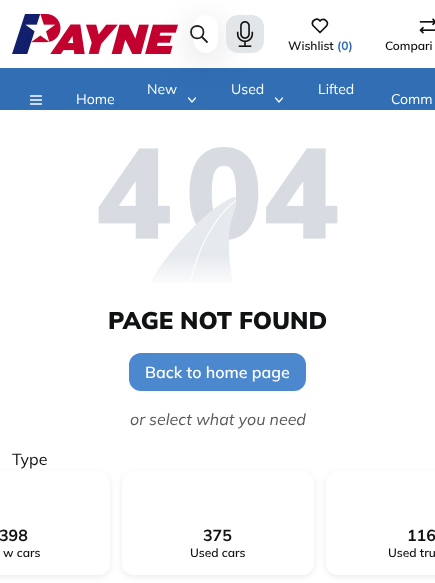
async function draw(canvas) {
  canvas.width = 435;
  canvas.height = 583;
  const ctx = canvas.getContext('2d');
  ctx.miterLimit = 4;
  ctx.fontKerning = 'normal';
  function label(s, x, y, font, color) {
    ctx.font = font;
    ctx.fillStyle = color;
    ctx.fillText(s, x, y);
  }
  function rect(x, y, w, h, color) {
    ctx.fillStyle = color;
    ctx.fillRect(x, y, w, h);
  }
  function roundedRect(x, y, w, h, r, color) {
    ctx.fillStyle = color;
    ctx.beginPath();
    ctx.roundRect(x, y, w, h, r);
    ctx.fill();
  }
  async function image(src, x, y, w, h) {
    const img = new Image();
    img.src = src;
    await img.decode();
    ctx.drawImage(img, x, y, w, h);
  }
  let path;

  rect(0, 0, 435, 583, '#fff');
  await image('assets/img1.png', 12, 14, 166, 40);
  rect(0, 68, 435, 42, '#316eb4');
  ctx.fillStyle = '#00000029';
  ctx.filter = 'blur(17.5px)';
  ctx.beginPath();
  ctx.roundRect(194, 23, 24, 38, 12);
  ctx.fill();
  ctx.filter = 'none';
  roundedRect(194, 15, 24, 38, 12, '#fff');
  path = new Path2D('M191 32C191 40.5 203.5 40.5 203.5 32C203.5 24 191 24 191 32M207 42L202 37');
  ctx.strokeStyle = '#202427';
  ctx.lineWidth = 1.8;
  ctx.lineCap = 'round';
  ctx.lineJoin = 'round';
  ctx.stroke(path);
  roundedRect(226, 15, 38, 38, 12, '#e3e6e8');
  await image('assets/img2.png', 236, 21, 18, 26);
  path = new Path2D('M326 26.5L320 32.5L313 25.5C310.5 21 317 17 320 21C323.5 16.5 330.5 22.5 326 26.5');
  ctx.strokeStyle = '#101214';
  ctx.lineWidth = 1.7;
  ctx.stroke(path);
  label('Wishlist', 288, 50, '600 12px Mulish', '#101214');
  label('(0)', 337, 50, 'bold 12px Mulish', '#316eb4');
  await image('assets/img3.png', 419, 18, 16, 16);
  label('Compari', 385, 50, '600 12px Mulish', '#101214');
  path = new Path2D('M30.5 96H41.5M30.5 100H41.5M30.5 104H41.5');
  ctx.strokeStyle = '#fff';
  ctx.lineWidth = 1.3;
  ctx.stroke(path);
  label('New', 147, 94, '14px Mulish', '#fff');
  path = new Path2D('M188.5 98L192 102L195.5 98');
  ctx.lineWidth = 1.2;
  ctx.stroke(path);
  label('Used', 231, 94, '14px Mulish', '#fff');
  path = new Path2D('M275.5 98L279 102L282.5 98');
  ctx.stroke(path);
  label('Lifted', 318, 94, '14px Mulish', '#fff');
  label('Home', 76, 104, '14px Mulish', '#fff');
  label('Comm', 391, 104, '14px Mulish', '#fff');
  await image('assets/img4.png', 98, 147, 240, 136);
  label('PAGE NOT FOUND', 108, 329, '900 24px Mulish', '#101214');
  roundedRect(129, 353, 177, 38, 12, '#4b88ce');
  label('Back to home page', 145, 378, '600 16px Mulish', '#fff');
  label('or select what you need', 130, 425, 'italic 16px Mulish', '#58595b');
  label('Type', 12, 465, '16px Mulish', '#101214');
  ctx.fillStyle = '#00000014';
  ctx.filter = 'blur(3px)';
  ctx.beginPath();
  ctx.roundRect(-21, 473, 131, 104, 12);
  ctx.fill();
  ctx.filter = 'none';
  roundedRect(-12, 471, 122, 104, 12, '#fff');
  label('398', -1, 541, 'bold 16px Mulish', '#101214');
  label('w cars', 3, 557, '600 12px Mulish', '#101214');
  ctx.fillStyle = '#00000014';
  ctx.filter = 'blur(3px)';
  ctx.beginPath();
  ctx.roundRect(122, 473, 192, 104, 12);
  ctx.fill();
  ctx.filter = 'none';
  roundedRect(122, 471, 192, 104, 12, '#fff');
  label('375', 203, 541, 'bold 16px Mulish', '#101214');
  label('Used cars', 190, 557, '600 12px Mulish', '#101214');
  ctx.fillStyle = '#00000014';
  ctx.filter = 'blur(3px)';
  ctx.beginPath();
  ctx.roundRect(326, 473, 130, 104, 12);
  ctx.fill();
  ctx.filter = 'none';
  roundedRect(326, 471, 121, 104, 12, '#fff');
  label('116', 407, 541, 'bold 16px Mulish', '#101214');
  label('Used tru', 388, 557, '600 12px Mulish', '#101214');
}

draw(document.querySelector('canvas'));
